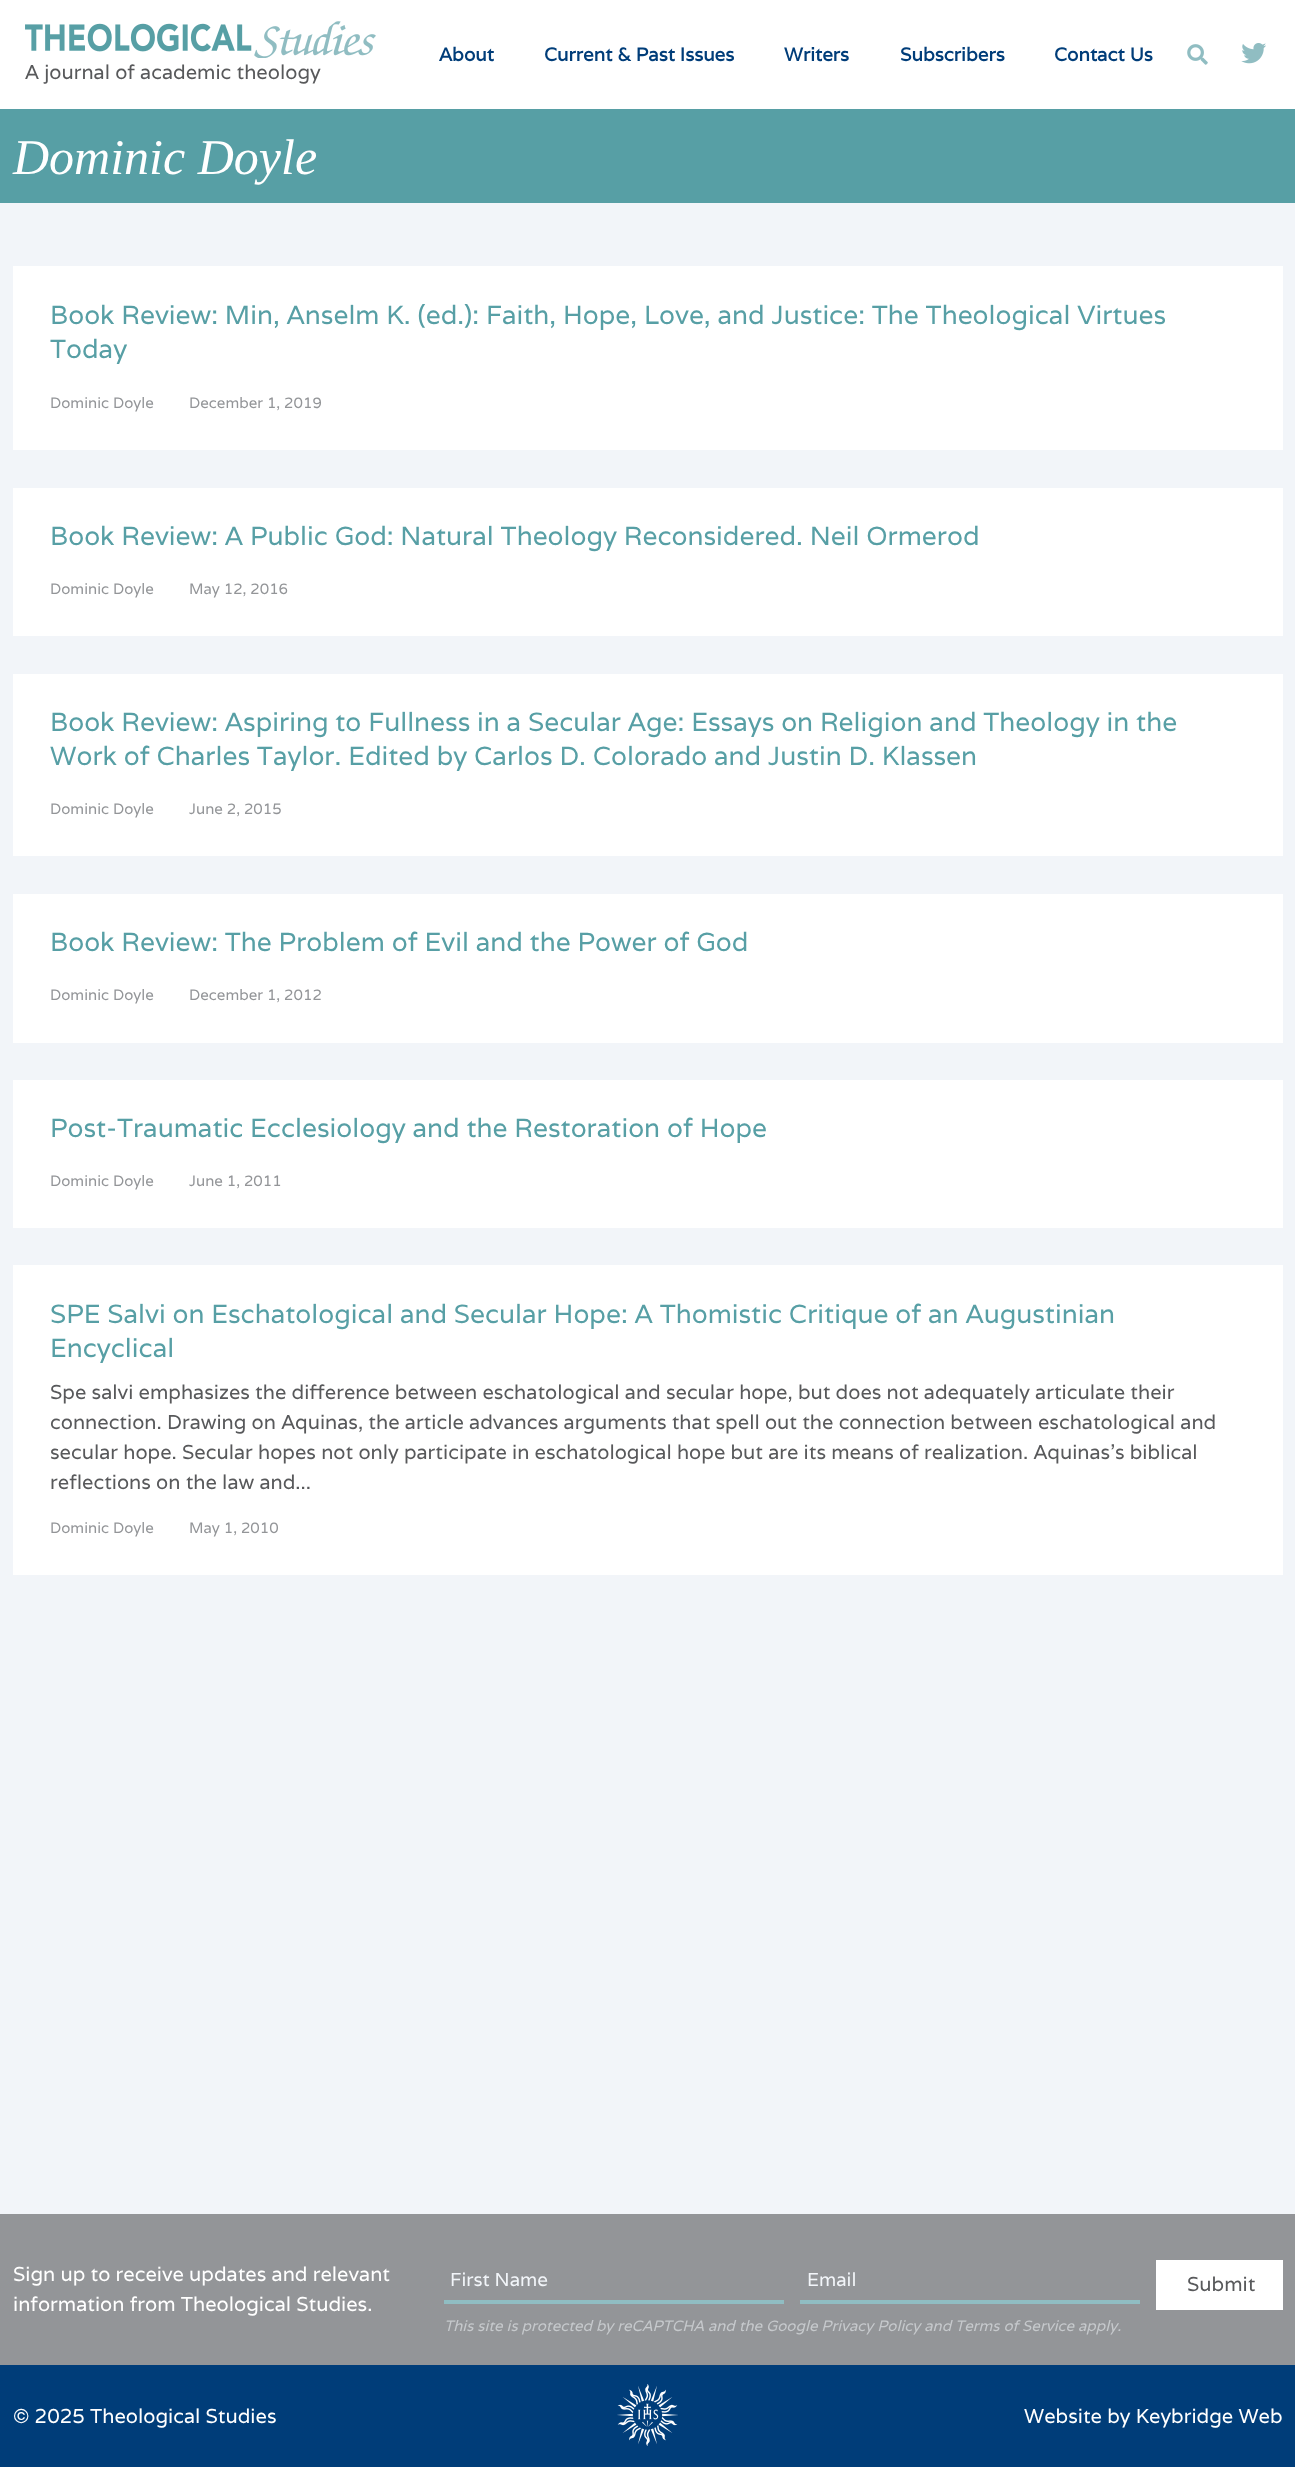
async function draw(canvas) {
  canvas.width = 1295;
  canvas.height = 2467;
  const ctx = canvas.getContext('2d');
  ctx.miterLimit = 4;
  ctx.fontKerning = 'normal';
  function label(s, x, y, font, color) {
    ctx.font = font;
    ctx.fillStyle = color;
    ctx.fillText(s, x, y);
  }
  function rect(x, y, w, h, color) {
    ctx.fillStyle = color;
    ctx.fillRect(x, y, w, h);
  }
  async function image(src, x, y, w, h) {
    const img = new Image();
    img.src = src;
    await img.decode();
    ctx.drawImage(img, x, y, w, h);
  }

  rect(0, 0, 1295, 2467, '#f2f5f9');
  rect(0, 0, 1295, 109, '#fff');
  label('About', 439, 61, 'bold 18.75px Varela', '#003d79');
  label('Current & Past Issues', 544, 61, 'bold 18.75px Varela', '#003d79');
  label('Writers', 784, 61, 'bold 18.75px Varela', '#003d79');
  label('Subscribers', 900, 61, 'bold 18.75px Varela', '#003d79');
  label('Contact Us', 1054, 61, 'bold 18.75px Varela', '#003d79');
  await image('assets/img1.png', 1187, 44, 21, 21);
  await image('assets/img2.png', 1241, 43, 25, 21);
  await image('assets/img3.png', 25, 21, 351, 37);
  label('A journal of academic theology', 25, 79, '20px Varela', '#58595b');
  rect(0, 109, 1295, 94, '#579fa5');
  label('Dominic Doyle', 13, 174, 'italic 50px Liberation Serif', '#fff');
  rect(13, 266, 1270, 184, '#fff');
  label('Book Review: Min, Anselm K. (ed.): Faith, Hope, Love, and Justice: The Theological Virtues', 50, 324, '26.25px Varela', '#579fa5');
  label('Today', 50, 358, '26.25px Varela', '#579fa5');
  label('Dominic Doyle', 50, 408, '15px Varela', '#939598');
  label('December 1, 2019', 189, 408, '15px Varela', '#939598');
  rect(13, 488, 1270, 148, '#fff');
  label('Book Review: A Public God: Natural Theology Reconsidered. Neil Ormerod', 50, 545, '26.25px Varela', '#579fa5');
  label('Dominic Doyle', 50, 594, '15px Varela', '#939598');
  label('May 12, 2016', 189, 594, '15px Varela', '#939598');
  rect(13, 674, 1270, 182, '#fff');
  label('Book Review: Aspiring to Fullness in a Secular Age: Essays on Religion and Theology in the', 50, 731, '26.25px Varela', '#579fa5');
  label('Work of Charles Taylor. Edited by Carlos D. Colorado and Justin D. Klassen', 50, 765, '26.25px Varela', '#579fa5');
  label('Dominic Doyle', 50, 814, '15px Varela', '#939598');
  label('June 2, 2015', 189, 814, '15px Varela', '#939598');
  rect(13, 894, 1270, 149, '#fff');
  label('Book Review: The Problem of Evil and the Power of God', 50, 951, '26.25px Varela', '#579fa5');
  label('Dominic Doyle', 50, 1000, '15px Varela', '#939598');
  label('December 1, 2012', 189, 1000, '15px Varela', '#939598');
  rect(13, 1080, 1270, 148, '#fff');
  label('Post-Traumatic Ecclesiology and the Restoration of Hope', 50, 1137, '26.25px Varela', '#579fa5');
  label('Dominic Doyle', 50, 1186, '15px Varela', '#939598');
  label('June 1, 2011', 189, 1186, '15px Varela', '#939598');
  rect(13, 1265, 1270, 310, '#fff');
  label('SPE Salvi on Eschatological and Secular Hope: A Thomistic Critique of an Augustinian', 50, 1323, '26.25px Varela', '#579fa5');
  label('Encyclical', 50, 1357, '26.25px Varela', '#579fa5');
  label('Spe salvi emphasizes the difference between eschatological and secular hope, but does not adequately articulate their', 50, 1399, '20px Varela', '#58595b');
  label('connection. Drawing on Aquinas, the article advances arguments that spell out the connection between eschatological and', 50, 1429, '20px Varela', '#58595b');
  label('secular hope. Secular hopes not only participate in eschatological hope but are its means of realization. Aquinas’s biblical', 50, 1459, '20px Varela', '#58595b');
  label('reflections on the law and...', 50, 1489, '20px Varela', '#58595b');
  label('Dominic Doyle', 50, 1533, '15px Varela', '#939598');
  label('May 1, 2010', 189, 1533, '15px Varela', '#939598');
  rect(0, 2214, 1295, 151, '#939598');
  label('Sign up to receive updates and relevant', 13, 2281, '20px Varela', '#fff');
  label('information from Theological Studies.', 13, 2311, '20px Varela', '#fff');
  rect(444, 2300, 340, 4, '#90bdc2');
  label('First Name', 450, 2286, '18.75px Varela', '#f2f5f9');
  rect(800, 2300, 340, 4, '#90bdc2');
  label('Email', 807, 2286, '18.75px Varela', '#f2f5f9');
  rect(1156, 2260, 127, 50, '#fff');
  label('Submit', 1187, 2291, '20px Varela', '#58595b');
  label('This site is protected by reCAPTCHA and the Google Privacy Policy and Terms of Service apply.', 444, 2331, 'italic 15px Varela', '#c6c9cc');
  rect(0, 2365, 1295, 102, '#003d79');
  label('© 2025 Theological Studies', 13, 2423, '20px Varela', '#fff');
  await image('assets/img4.png', 617, 2384, 61, 62);
  label('Website by Keybridge Web', 1024, 2423, '20px Varela', '#fff');
}

draw(document.querySelector('canvas'));
